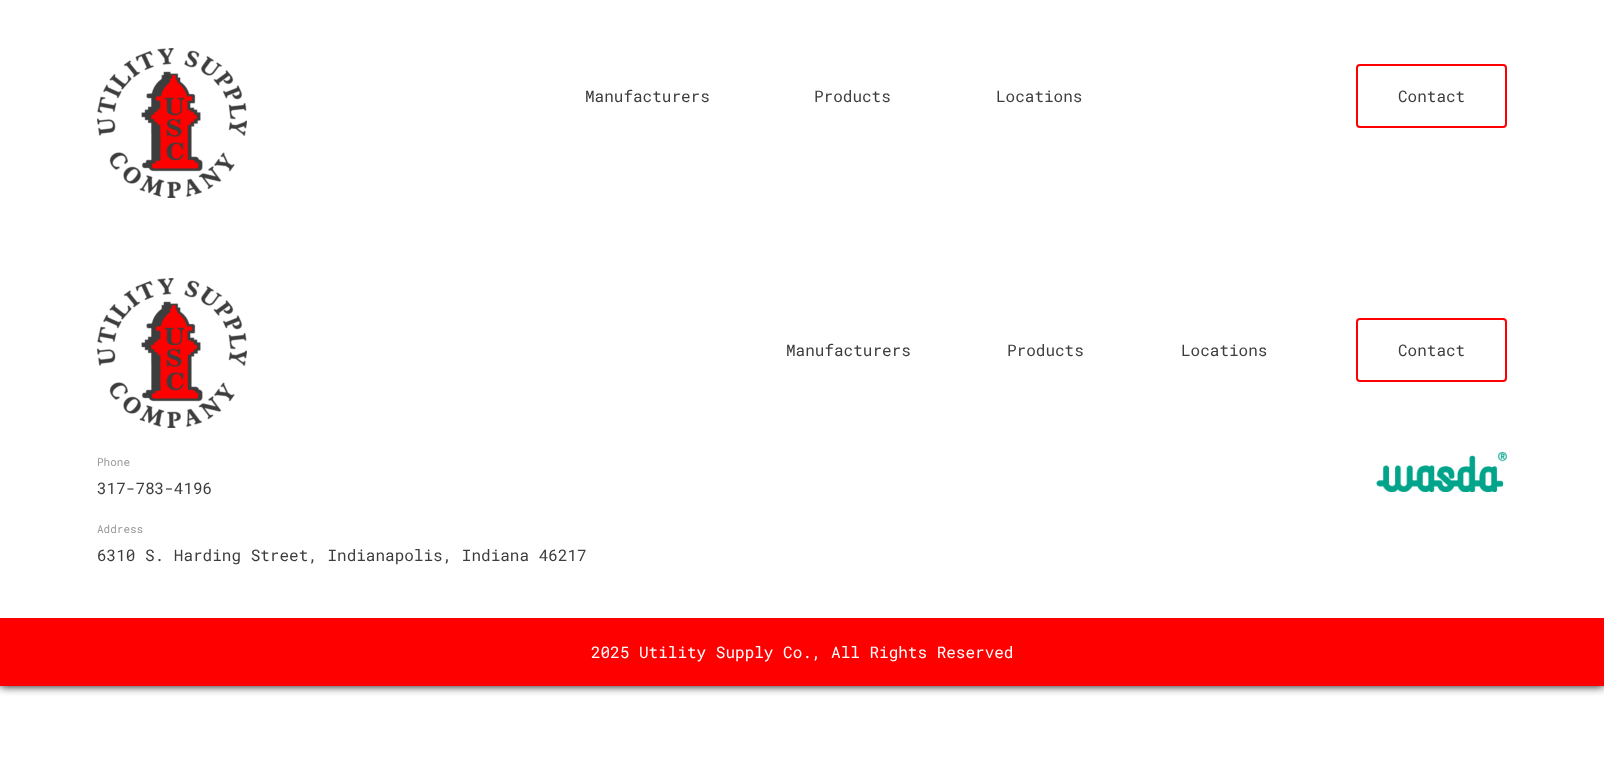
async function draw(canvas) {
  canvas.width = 1604;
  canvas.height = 784;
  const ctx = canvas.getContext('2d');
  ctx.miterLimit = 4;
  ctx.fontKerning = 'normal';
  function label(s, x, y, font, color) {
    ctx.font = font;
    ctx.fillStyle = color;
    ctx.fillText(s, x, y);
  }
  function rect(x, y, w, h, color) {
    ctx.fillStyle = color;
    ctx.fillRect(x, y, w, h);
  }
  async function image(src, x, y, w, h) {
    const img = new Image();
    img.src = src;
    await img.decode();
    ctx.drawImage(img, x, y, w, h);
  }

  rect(0, 0, 1604, 784, '#fff');
  ctx.save();
  ctx.beginPath();
  ctx.rect(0, 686, 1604, 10);
  ctx.clip();
  ctx.fillStyle = '#000';
  ctx.filter = 'blur(5px)';
  ctx.beginPath();
  ctx.rect(0, 0, 1604, 686);
  ctx.fill();
  ctx.filter = 'none';
  ctx.restore();
  await image('assets/img1.png', 97, 48, 150, 150);
  label('Manufacturers', 585, 102, '16px Roboto Mono', '#3d3d3d');
  label('Products', 814, 102, '16px Roboto Mono', '#3d3d3d');
  label('Locations', 996, 102, '16px Roboto Mono', '#3d3d3d');
  ctx.beginPath();
  ctx.roundRect(1357, 65, 149, 62, 3);
  ctx.strokeStyle = '#f00';
  ctx.lineWidth = 2;
  ctx.stroke();
  label('Contact', 1398, 102, '16px Roboto Mono', '#3d3d3d');
  await image('assets/img1.png', 97, 278, 150, 150);
  label('Manufacturers', 786, 356, '16px Roboto Mono', '#3d3d3d');
  label('Products', 1007, 356, '16px Roboto Mono', '#3d3d3d');
  label('Locations', 1181, 356, '16px Roboto Mono', '#3d3d3d');
  ctx.beginPath();
  ctx.roundRect(1357, 319, 149, 62, 3);
  ctx.stroke();
  label('Contact', 1398, 356, '16px Roboto Mono', '#3d3d3d');
  label('Phone', 97, 466, '11px Roboto Mono', '#97999b');
  label('317-783-4196', 97, 494, '16px Roboto Mono', '#3d3d3d');
  label('Address', 97, 533, '11px Roboto Mono', '#97999b');
  label('6310 S. Harding Street, Indianapolis, Indiana 46217', 97, 561, '16px Roboto Mono', '#3d3d3d');
  await image('assets/img2.png', 1376, 452, 131, 40);
  rect(0, 618, 1604, 68, '#f00');
  label('2025 Utility Supply Co., All Rights Reserved', 591, 658, '16px Roboto Mono', '#fff');
}

draw(document.querySelector('canvas'));
